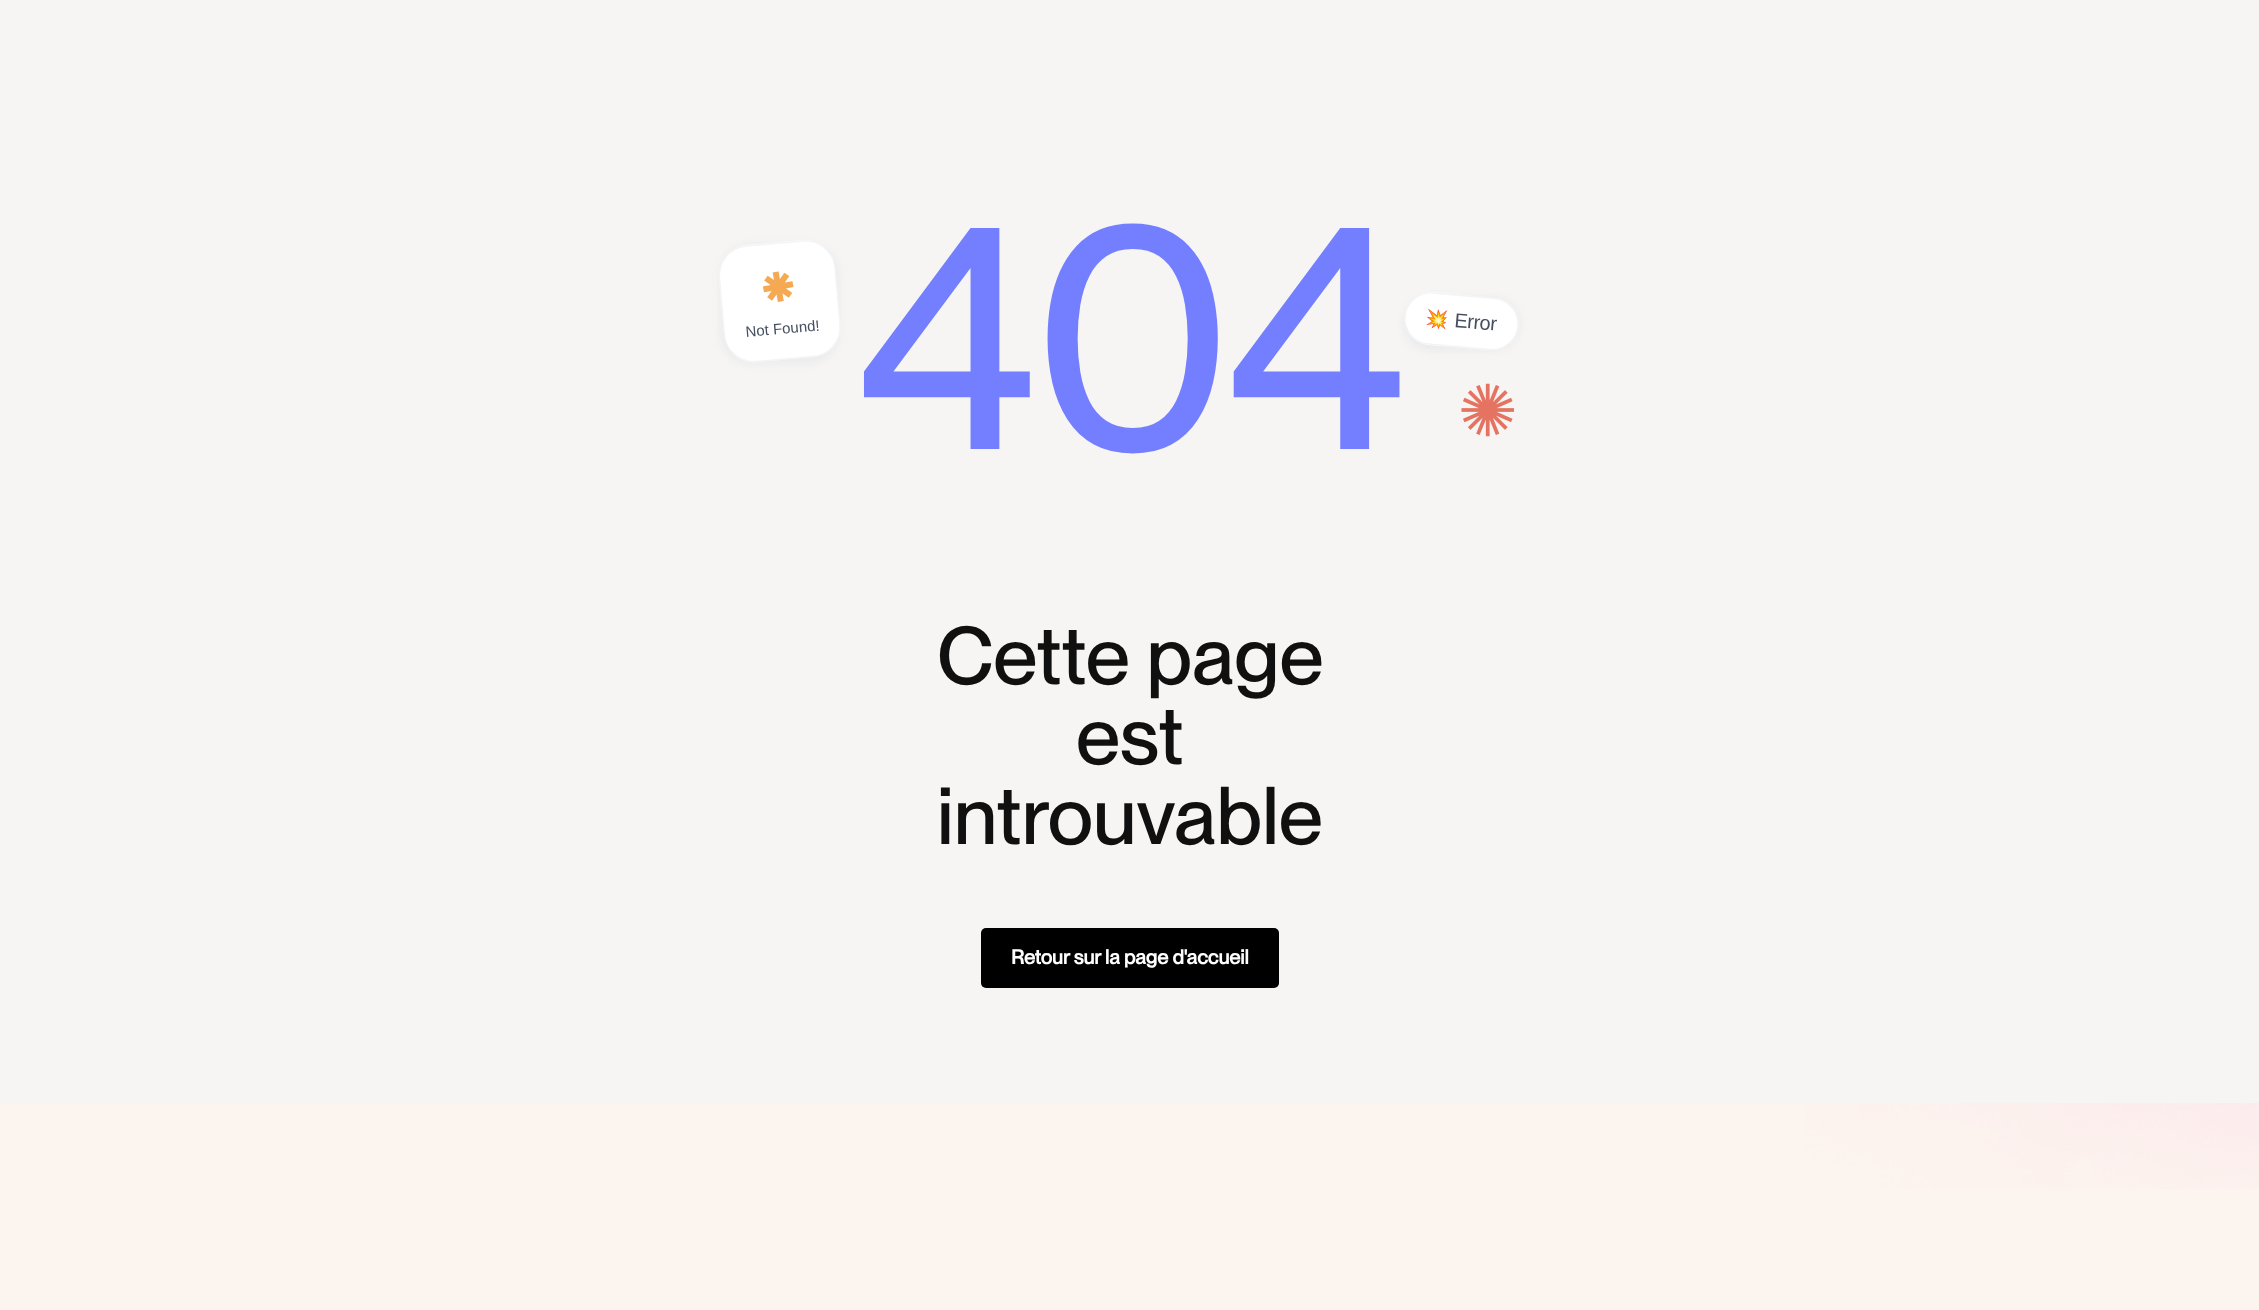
async function draw(canvas) {
  canvas.width = 2259;
  canvas.height = 1310;
  const ctx = canvas.getContext('2d');
  ctx.miterLimit = 4;
  ctx.fontKerning = 'normal';
  function label(s, x, y, font, color) {
    ctx.font = font;
    ctx.fillStyle = color;
    ctx.fillText(s, x, y);
  }
  function rect(x, y, w, h, color) {
    ctx.fillStyle = color;
    ctx.fillRect(x, y, w, h);
  }
  function roundedRect(x, y, w, h, r, color) {
    ctx.fillStyle = color;
    ctx.beginPath();
    ctx.roundRect(x, y, w, h, r);
    ctx.fill();
  }
  async function image(src, x, y, w, h) {
    const img = new Image();
    img.src = src;
    await img.decode();
    ctx.drawImage(img, x, y, w, h);
  }
  let path;

  rect(0, 0, 2259, 1310, '#fcf5ef');
  await image('assets/img1.png', 1805, 1103, 454, 86);
  rect(0, 0, 2259, 1103, '#f6f5f3');
  ctx.fillStyle = '#c4cad43d';
  ctx.filter = 'blur(5px)';
  ctx.beginPath();
  ctx.roundRect(721, 245, 117, 118, 30);
  ctx.fill();
  ctx.filter = 'none';
  ctx.fillStyle = '#fff';
  path = new Path2D('M746 245L803 240C819 239 834 251 835 268L840 325C842 341 830 356 813 357L757 362C740 364 726 351 724 335L719 278C718 261 730 247 746 245Z');
  ctx.fill(path);
  path = new Path2D('M746.5 246L803 241C819 239.5 833.5 251.5 835 267.5L840 325C841 341 829 355.5 813 356.5L756.5 361.5C740.5 363 726 351 724.5 335L719.5 277.5C718.5 261.5 730.5 247 746.5 246Z');
  ctx.strokeStyle = '#f3f4f6';
  ctx.lineWidth = 1.3;
  ctx.stroke(path);
  await image('assets/img2.png', 763, 271, 31, 31);
  ctx.font = '15px Liberation Sans';
  ctx.fillStyle = '#454f5f';
  ctx.save();
  ctx.translate(746, 337);
  ctx.rotate(-5 * Math.PI / 180);
  ctx.fillText('Not Found!', 0, 0);
  ctx.restore();
  ctx.letterSpacing = '-6.5px';
  label('404', 856, 449, '320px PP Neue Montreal', '#737fff');
  ctx.fillStyle = '#c4cad43d';
  ctx.filter = 'blur(5px)';
  ctx.beginPath();
  ctx.roundRect(1404, 298, 115, 52, 26);
  ctx.fill();
  ctx.filter = 'none';
  ctx.fillStyle = '#fff';
  path = new Path2D('M1433 292L1495 298C1509 299 1520 312 1518 326C1517 341 1504 351 1490 350L1428 345C1414 343 1403 331 1405 316C1406 302 1419 291 1433 292Z');
  ctx.fill(path);
  path = new Path2D('M1433 293L1494.5 298.5C1508.5 299.5 1519 312 1518 326C1516.5 340.5 1504 350.5 1490 349.5L1428.5 344C1414.5 343 1404 330.5 1405 316.5C1406.5 302 1419 292 1433 293Z');
  ctx.stroke(path);
  ctx.letterSpacing = '0px';
  ctx.font = '18px Noto Color Emoji';
  ctx.fillStyle = '#333';
  ctx.save();
  ctx.translate(1425, 324);
  ctx.rotate(5 * Math.PI / 180);
  ctx.fillText('💥', 0, 0);
  ctx.restore();
  ctx.letterSpacing = '-0.5px';
  ctx.font = '20px Liberation Sans';
  ctx.fillStyle = '#454f5f';
  ctx.save();
  ctx.translate(1454, 327);
  ctx.rotate(5 * Math.PI / 180);
  ctx.fillText('Error', 0, 0);
  ctx.restore();
  await image('assets/img3.png', 1461, 383, 53, 54);
  ctx.letterSpacing = '0px';
  label('Cette page', 937, 684, '500 80px PP Neue Montreal', '#101010');
  label('est', 1076, 764, '500 80px PP Neue Montreal', '#101010');
  label('introuvable', 937, 844, '500 80px PP Neue Montreal', '#101010');
  roundedRect(981, 928, 298, 60, 5, '#000');
  label('Retour sur la page d\'accueil', 1011, 964, 'bold 20px PP Neue Montreal', '#fff');
}

draw(document.querySelector('canvas'));
